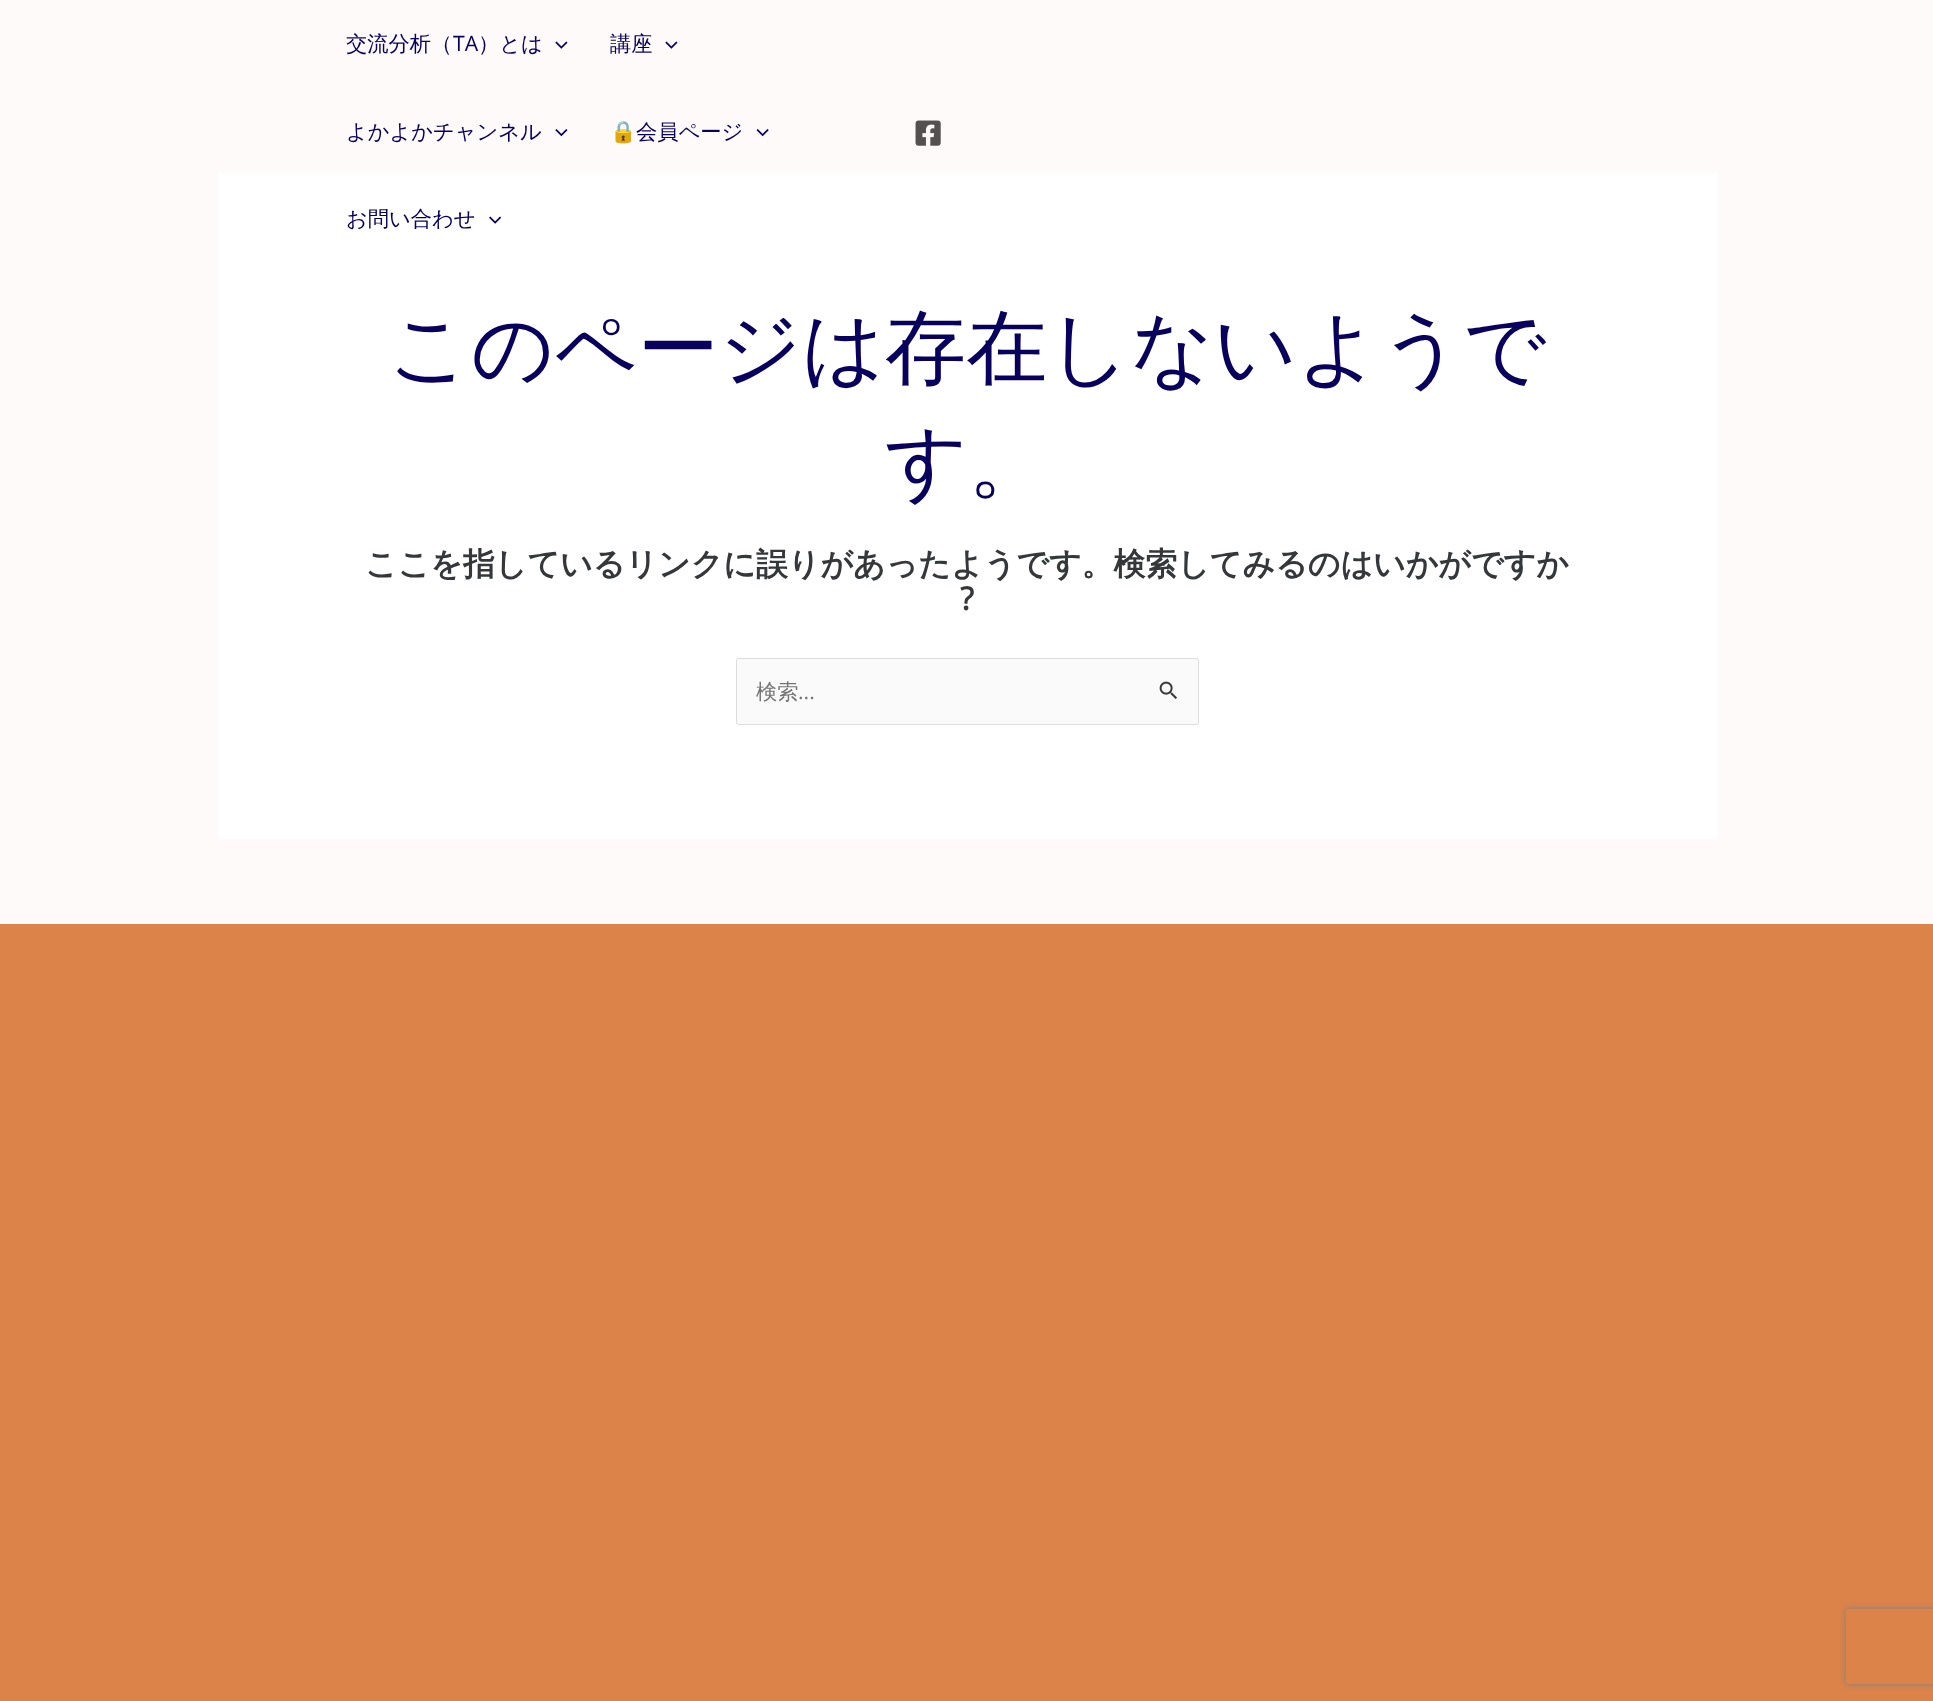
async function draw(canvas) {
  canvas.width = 1933;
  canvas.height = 1701;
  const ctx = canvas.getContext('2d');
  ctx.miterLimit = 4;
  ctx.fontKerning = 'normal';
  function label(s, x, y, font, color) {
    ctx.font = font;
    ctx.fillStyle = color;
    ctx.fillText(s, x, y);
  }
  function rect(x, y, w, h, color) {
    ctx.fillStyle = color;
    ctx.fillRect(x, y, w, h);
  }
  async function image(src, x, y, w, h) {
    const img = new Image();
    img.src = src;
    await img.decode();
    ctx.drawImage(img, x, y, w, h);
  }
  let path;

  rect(0, 0, 1933, 1701, '#fefafa');
  label('交流分析（', 346, 51, '500 21.25px WenQuanYi Zen Hei', '#08005c');
  label('TA', 453, 51, '21.25px Open Sans', '#08005c');
  label('）とは', 478, 51, '500 21.25px WenQuanYi Zen Hei', '#08005c');
  await image('assets/img1.png', 555, 41, 13, 8);
  label('講座', 610, 51, '500 21.25px WenQuanYi Zen Hei', '#08005c');
  await image('assets/img1.png', 665, 41, 13, 8);
  label('よかよかチャンネル', 346, 139, '500 21.25px WenQuanYi Zen Hei', '#08005c');
  await image('assets/img2.png', 555, 129, 13, 8);
  label('🔒', 610, 139, '21.25px Noto Color Emoji', '#08005c');
  label('会員ページ', 636, 139, '500 21.25px WenQuanYi Zen Hei', '#08005c');
  await image('assets/img3.png', 756, 129, 13, 8);
  rect(218, 173, 1500, 666, '#fff');
  label('お問い合わせ', 346, 226, '500 21.25px WenQuanYi Zen Hei', '#08005c');
  await image('assets/img4.png', 489, 216, 12, 8);
  await image('assets/img5.png', 915, 120, 26, 26);
  label('このページは存在しないようで', 388, 376, '500 81.25px WenQuanYi Zen Hei', '#08005c');
  label('す。', 885, 490, '500 81.25px WenQuanYi Zen Hei', '#08005c');
  label('ここを指しているリンクに誤りがあったようです。検索してみるのはいかがですか', 365, 575, 'bold 31.9px WenQuanYi Zen Hei', '#35373a');
  label('?', 960, 610, 'bold 31.9px Open Sans', '#35373a');
  ctx.fillStyle = '#fafafa';
  ctx.beginPath();
  ctx.roundRect(736.5, 658.5, 462, 66, 2);
  ctx.fill();
  ctx.strokeStyle = '#ddd';
  ctx.stroke();
  label('検索', 756, 699, '500 21.25px WenQuanYi Zen Hei', '#757575');
  label('...', 798, 699, '21.25px Open Sans', '#757575');
  await image('assets/img6.png', 1159, 681, 18, 18);
  rect(0, 924, 1933, 777, '#db8349');
  ctx.save();
  path = new Path2D('M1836 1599H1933V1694H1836ZM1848.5 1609H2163.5C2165 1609 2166 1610 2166 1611.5V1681.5C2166 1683 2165 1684 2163.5 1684H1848.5C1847 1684 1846 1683 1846 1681.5V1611.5C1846 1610 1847 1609 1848.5 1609Z');
  ctx.clip(path, 'evenodd');
  ctx.fillStyle = '#808080';
  ctx.filter = 'blur(3px)';
  ctx.beginPath();
  ctx.roundRect(1846, 1609, 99, 75, 2.5);
  ctx.fill();
  ctx.filter = 'none';
  ctx.restore();
}

draw(document.querySelector('canvas'));
